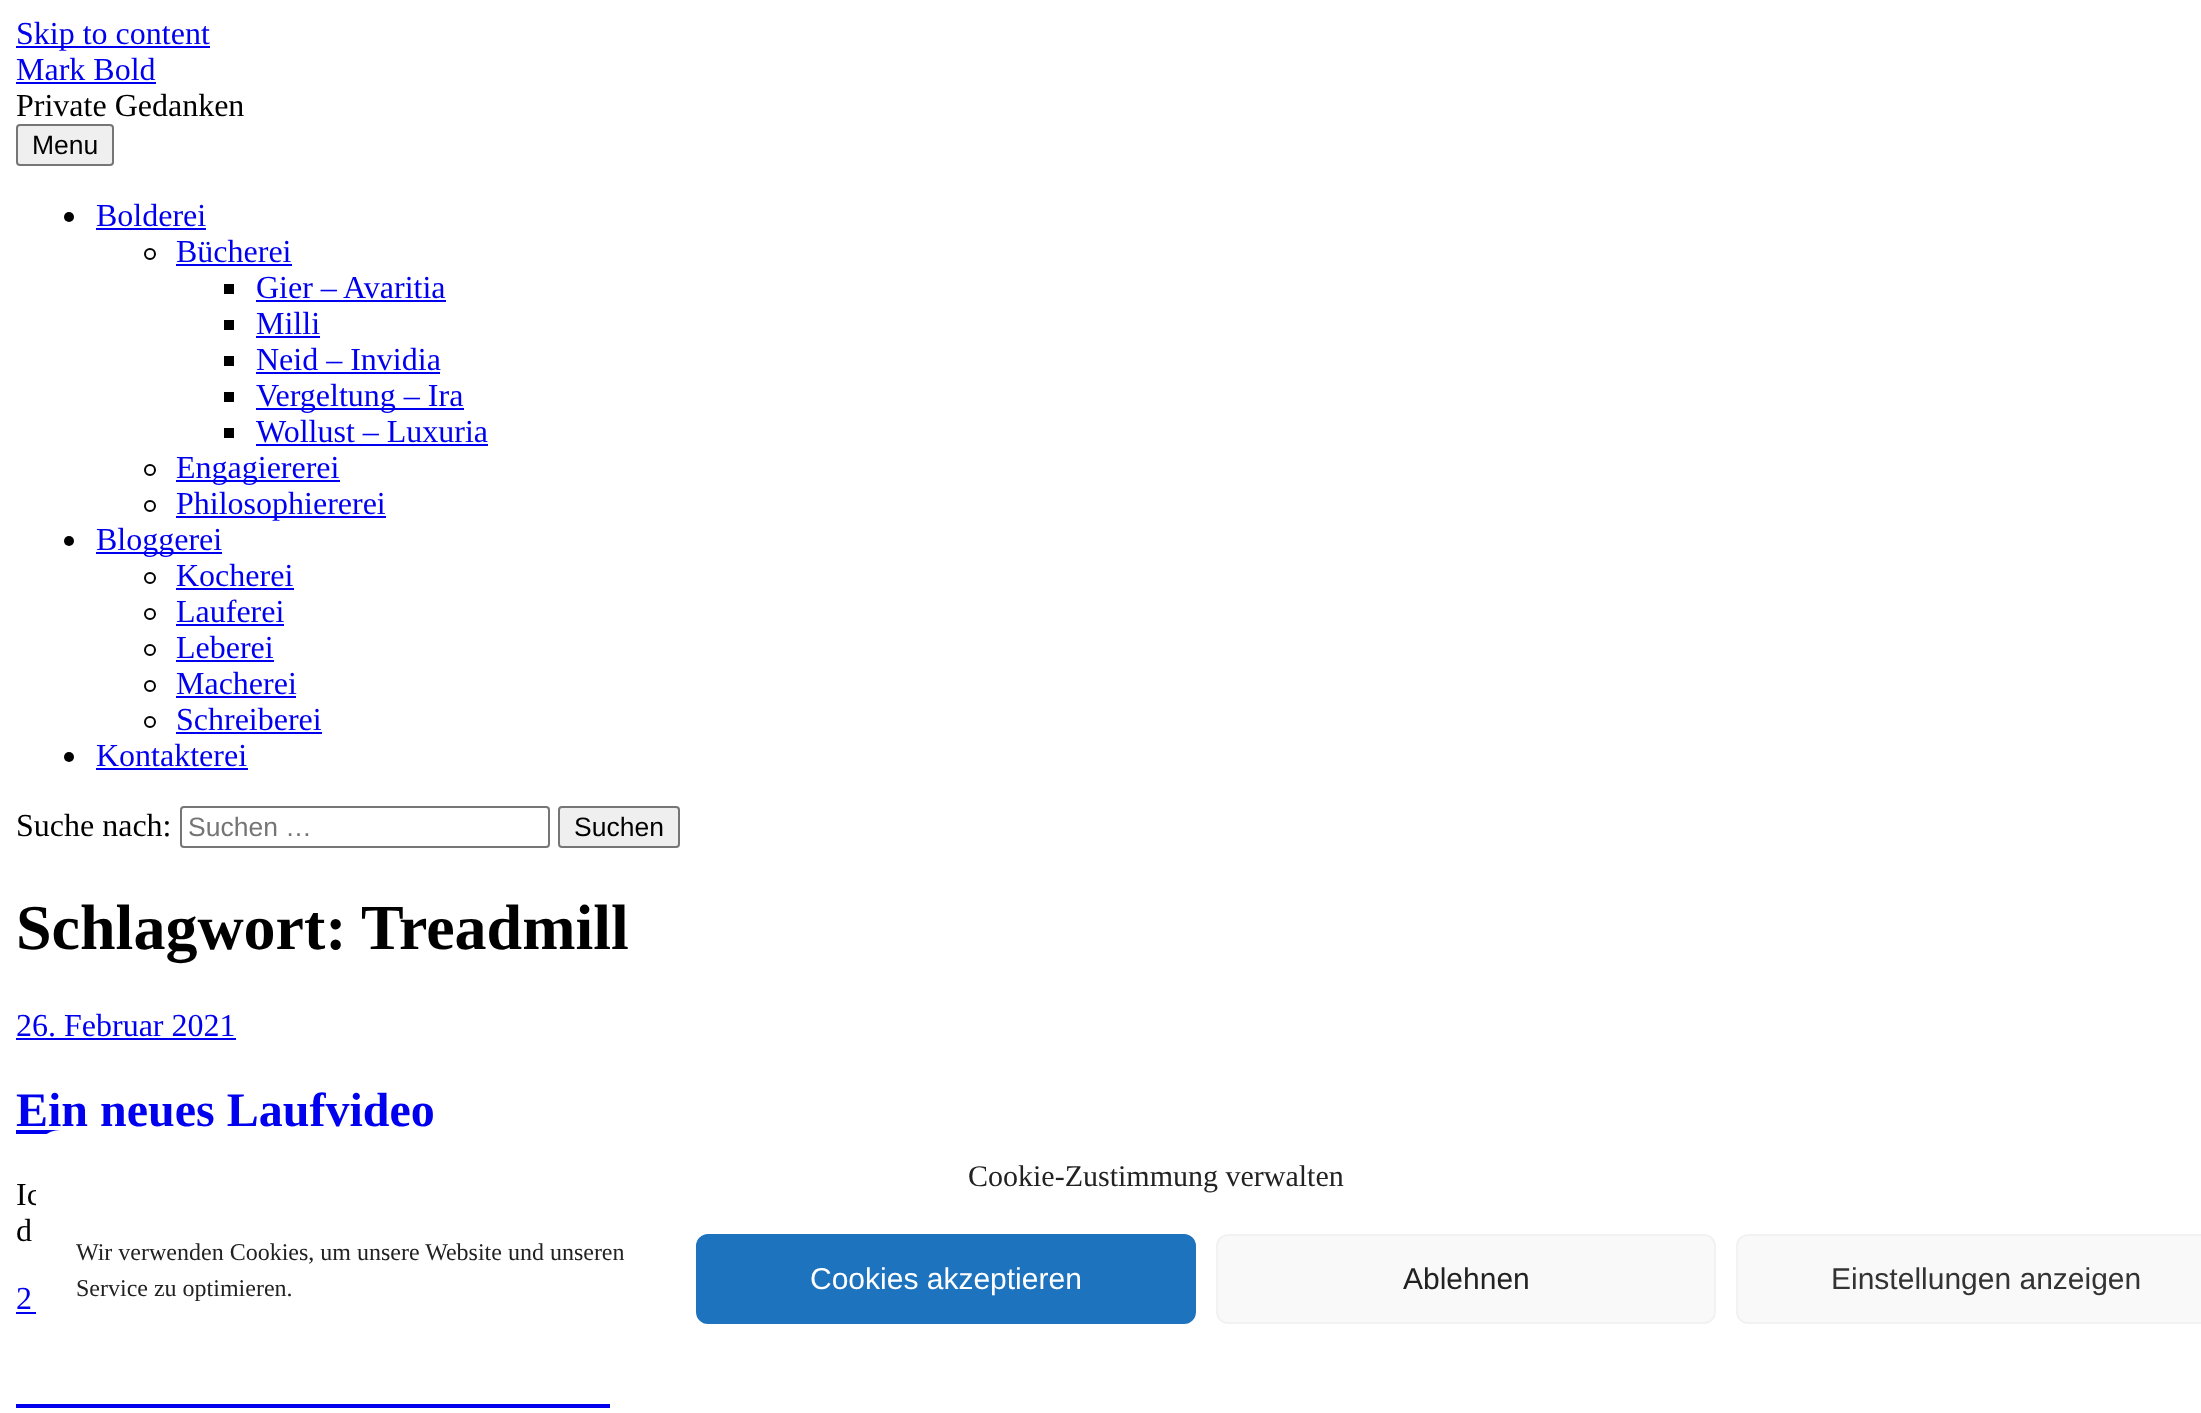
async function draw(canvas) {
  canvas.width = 2201;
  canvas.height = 1413;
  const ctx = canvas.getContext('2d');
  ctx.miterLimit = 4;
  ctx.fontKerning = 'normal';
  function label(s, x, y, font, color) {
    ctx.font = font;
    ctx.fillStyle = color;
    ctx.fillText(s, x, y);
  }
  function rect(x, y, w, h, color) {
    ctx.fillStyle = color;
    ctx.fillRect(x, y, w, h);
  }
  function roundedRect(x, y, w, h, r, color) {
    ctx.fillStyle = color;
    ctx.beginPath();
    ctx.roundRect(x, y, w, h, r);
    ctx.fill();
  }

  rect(0, 0, 2201, 1413, '#fff');
  rect(16, 46, 194, 2, '#00e');
  label('Skip to content', 16, 44, '32px Liberation Serif', '#00e');
  label('Mark Bold', 16, 80, '32px Liberation Serif', '#00e');
  rect(16, 82, 140, 2, '#00e');
  label('Private Gedanken', 16, 116, '32px Liberation Serif', '#000');
  ctx.fillStyle = '#efefef';
  ctx.beginPath();
  ctx.roundRect(17, 125, 96, 40, 3);
  ctx.fill();
  ctx.strokeStyle = '#767676';
  ctx.lineWidth = 2;
  ctx.stroke();
  label('Menu', 32, 154, '26.5px Liberation Sans', '#000');
  ctx.beginPath();
  ctx.arc(69, 217, 5, 0, 2 * Math.PI);
  ctx.fill();
  label('Bolderei', 96, 226, '32px Liberation Serif', '#00e');
  rect(96, 228, 110, 2, '#00e');
  ctx.beginPath();
  ctx.arc(150, 254, 5, 0, 2 * Math.PI);
  ctx.strokeStyle = '#000';
  ctx.stroke();
  label('Bücherei', 176, 262, '32px Liberation Serif', '#00e');
  rect(176, 264, 116, 2, '#00e');
  rect(224, 284, 10, 10, '#000');
  label('Gier – Avaritia', 256, 298, '32px Liberation Serif', '#00e');
  rect(256, 300, 190, 2, '#00e');
  rect(224, 320, 10, 10, '#000');
  label('Milli', 256, 334, '32px Liberation Serif', '#00e');
  rect(256, 336, 64, 2, '#00e');
  rect(224, 356, 10, 10, '#000');
  label('Neid – Invidia', 256, 370, '32px Liberation Serif', '#00e');
  rect(256, 372, 184, 2, '#00e');
  rect(224, 392, 10, 10, '#000');
  rect(256, 408, 208, 2, '#00e');
  label('Vergeltung – Ira', 256, 406, '32px Liberation Serif', '#00e');
  rect(224, 428, 10, 10, '#000');
  label('Wollust – Luxuria', 256, 442, '32px Liberation Serif', '#00e');
  rect(256, 444, 232, 2, '#00e');
  ctx.beginPath();
  ctx.arc(150, 470, 5, 0, 2 * Math.PI);
  ctx.stroke();
  rect(176, 480, 164, 2, '#00e');
  label('Engagiererei', 176, 478, '32px Liberation Serif', '#00e');
  ctx.beginPath();
  ctx.arc(150, 506, 5, 0, 2 * Math.PI);
  ctx.stroke();
  rect(176, 516, 210, 2, '#00e');
  label('Philosophiererei', 176, 514, '32px Liberation Serif', '#00e');
  ctx.fillStyle = '#000';
  ctx.beginPath();
  ctx.arc(69, 541, 5, 0, 2 * Math.PI);
  ctx.fill();
  rect(96, 552, 126, 2, '#00e');
  label('Bloggerei', 96, 550, '32px Liberation Serif', '#00e');
  ctx.beginPath();
  ctx.arc(150, 578, 5, 0, 2 * Math.PI);
  ctx.stroke();
  label('Kocherei', 176, 586, '32px Liberation Serif', '#00e');
  rect(176, 588, 118, 2, '#00e');
  ctx.beginPath();
  ctx.arc(150, 614, 5, 0, 2 * Math.PI);
  ctx.stroke();
  label('Lauferei', 176, 622, '32px Liberation Serif', '#00e');
  rect(176, 624, 108, 2, '#00e');
  ctx.beginPath();
  ctx.arc(150, 650, 5, 0, 2 * Math.PI);
  ctx.stroke();
  label('Leberei', 176, 658, '32px Liberation Serif', '#00e');
  rect(176, 660, 98, 2, '#00e');
  ctx.beginPath();
  ctx.arc(150, 686, 5, 0, 2 * Math.PI);
  ctx.stroke();
  label('Macherei', 176, 694, '32px Liberation Serif', '#00e');
  rect(176, 696, 120, 2, '#00e');
  ctx.beginPath();
  ctx.arc(150, 722, 5, 0, 2 * Math.PI);
  ctx.stroke();
  label('Schreiberei', 176, 730, '32px Liberation Serif', '#00e');
  rect(176, 732, 146, 2, '#00e');
  ctx.fillStyle = '#000';
  ctx.beginPath();
  ctx.arc(69, 757, 5, 0, 2 * Math.PI);
  ctx.fill();
  label('Kontakterei', 96, 766, '32px Liberation Serif', '#00e');
  rect(96, 768, 152, 2, '#00e');
  label('Suche nach:', 16, 836, '32px Liberation Serif', '#000');
  ctx.beginPath();
  ctx.roundRect(181, 807, 368, 40, 3);
  ctx.strokeStyle = '#767676';
  ctx.stroke();
  label('Suchen …', 188, 836, '26.5px Liberation Sans', '#757575');
  ctx.fillStyle = '#efefef';
  ctx.beginPath();
  ctx.roundRect(559, 807, 120, 40, 3);
  ctx.fill();
  ctx.stroke();
  label('Suchen', 574, 836, '26.5px Liberation Sans', '#000');
  label('Schlagwort:', 16, 949, 'bold 64px Liberation Serif', '#000');
  label('Treadmill', 361, 949, 'bold 64px Liberation Serif', '#000');
  label('26. Februar 2021', 16, 1036, '32px Liberation Serif', '#00e');
  rect(16, 1038, 220, 2, '#00e');
  label('Ein neues Laufvideo', 16, 1126, 'bold 48px Liberation Serif', '#00e');
  rect(16, 1130, 44, 4, '#00e');
  label('Ic', 16, 1205, '32px Liberation Serif', '#000');
  label('d', 16, 1241, '32px Liberation Serif', '#000');
  label('2', 16, 1309, '32px Liberation Serif', '#00e');
  rect(16, 1312, 20, 2, '#00e');
  rect(16, 1404, 594, 4, '#00e');
  roundedRect(36, 1130, 2162, 264, 24, '#fff');
  label('Cookie-Zustimmung verwalten', 968, 1186, '30px Liberation Serif', '#222');
  label('Wir verwenden Cookies, um unsere Website und unseren', 76, 1260, '24px Liberation Serif', '#222');
  label('Service zu optimieren.', 76, 1296, '24px Liberation Serif', '#222');
  ctx.fillStyle = '#1e73be';
  ctx.beginPath();
  ctx.roundRect(697, 1235, 498, 88, 11);
  ctx.fill();
  ctx.strokeStyle = '#1e73be';
  ctx.stroke();
  label('Cookies akzeptieren', 810, 1289, '30px Liberation Sans', '#fff');
  ctx.fillStyle = '#f9f9f9';
  ctx.beginPath();
  ctx.roundRect(1217, 1235, 498, 88, 11);
  ctx.fill();
  ctx.strokeStyle = '#f2f2f2';
  ctx.stroke();
  label('Ablehnen', 1403, 1289, '30px Liberation Sans', '#222');
  ctx.fillStyle = '#f9f9f9';
  ctx.beginPath();
  ctx.roundRect(1737, 1235, 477, 88, 11);
  ctx.fill();
  ctx.stroke();
  label('Einstellungen anzeigen', 1831, 1289, '30px Liberation Sans', '#333');
}

draw(document.querySelector('canvas'));
